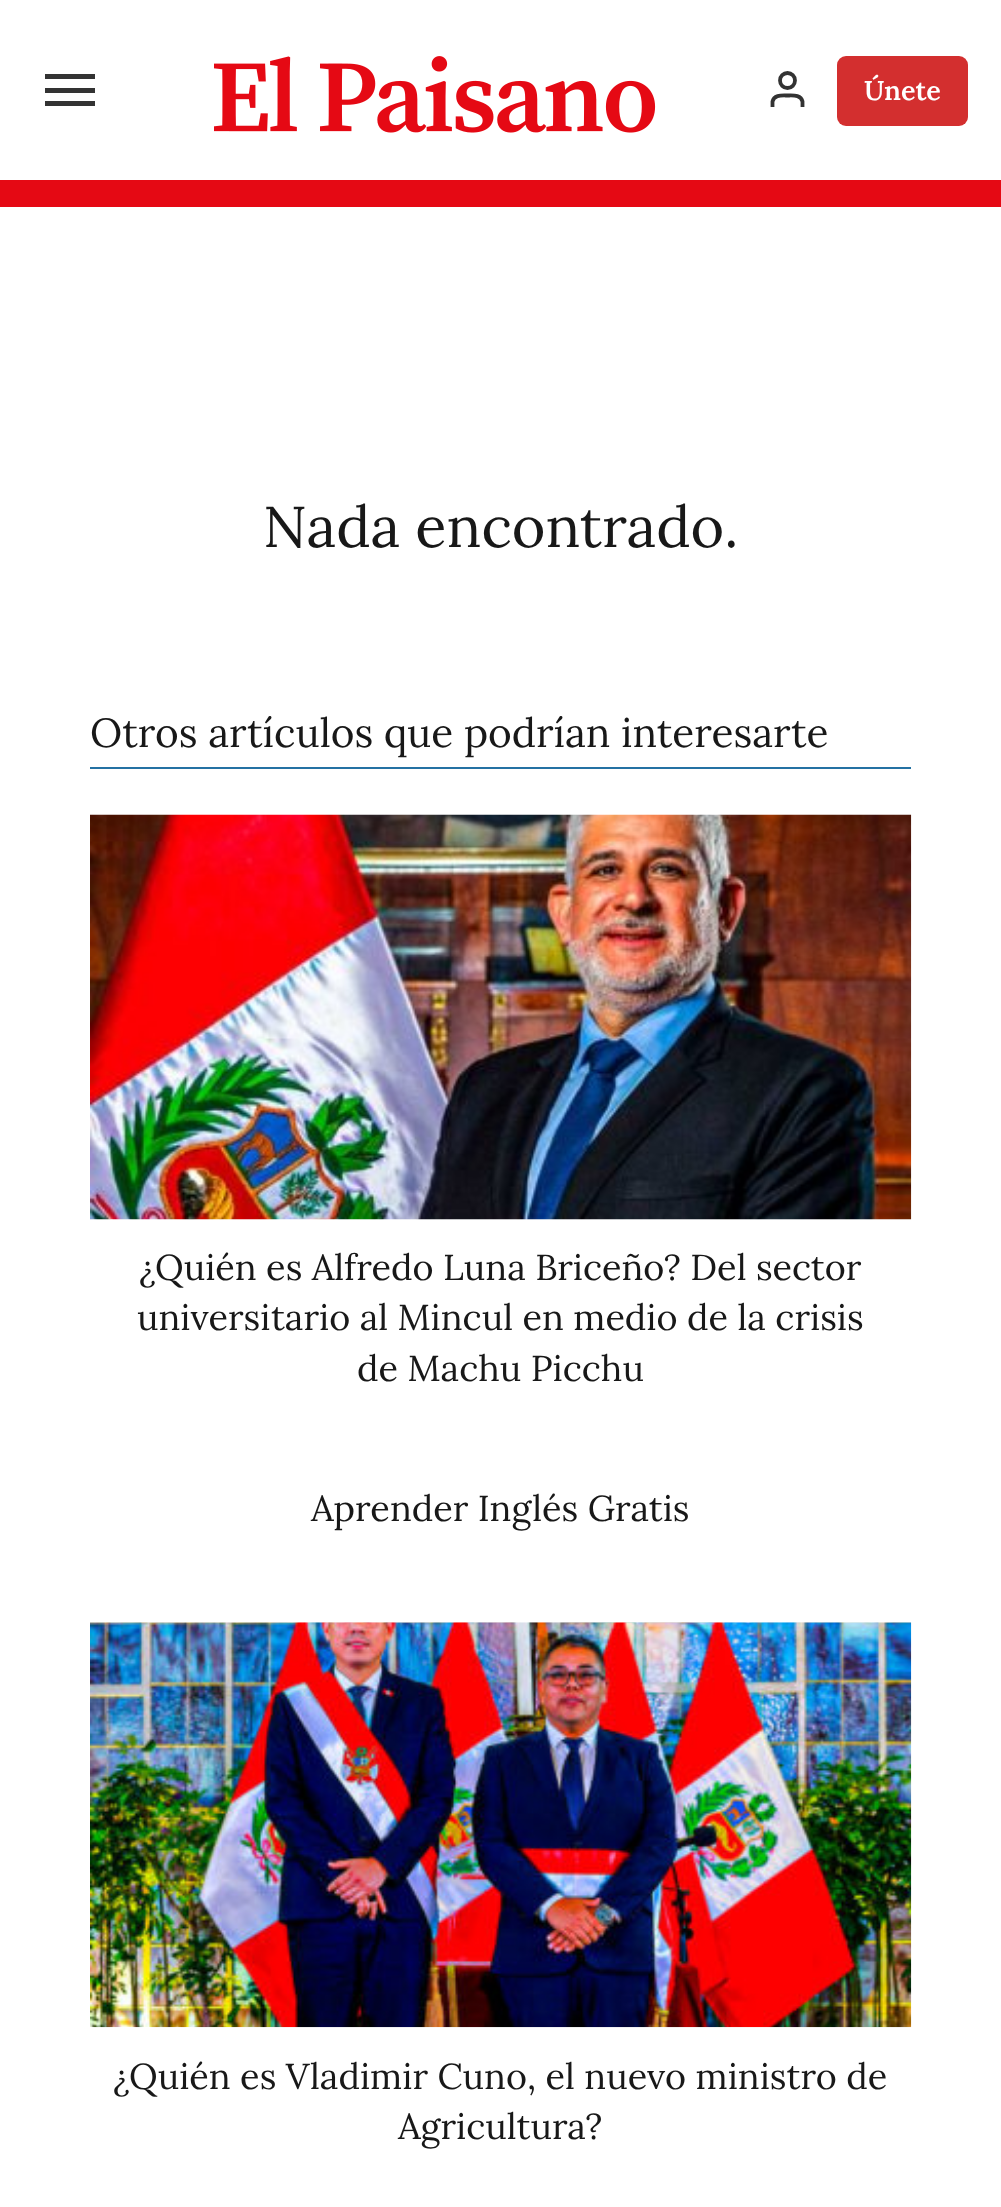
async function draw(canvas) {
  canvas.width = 1001;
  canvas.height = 2207;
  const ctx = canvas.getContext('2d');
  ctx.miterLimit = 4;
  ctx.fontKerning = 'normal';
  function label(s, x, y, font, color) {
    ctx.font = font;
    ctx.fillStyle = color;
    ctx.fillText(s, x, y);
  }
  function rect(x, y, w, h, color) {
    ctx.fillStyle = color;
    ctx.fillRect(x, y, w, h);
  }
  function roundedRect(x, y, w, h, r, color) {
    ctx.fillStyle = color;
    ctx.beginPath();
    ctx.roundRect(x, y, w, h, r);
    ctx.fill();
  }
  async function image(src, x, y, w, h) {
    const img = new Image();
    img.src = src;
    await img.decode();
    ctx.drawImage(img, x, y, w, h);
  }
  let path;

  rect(0, 0, 1001, 2207, '#fff');
  rect(0, 180, 1001, 27, '#e50914');
  rect(45, 74, 50, 5, '#333');
  rect(45, 88, 50, 5, '#333');
  rect(45, 101, 50, 5, '#333');
  await image('assets/img1.png', 214, 56, 442, 77);
  path = new Path2D('M802.5 107V101.5C801 94.5 793 95.5 787.5 95.5C782 95.5 774 94.5 772.5 101.5V107');
  ctx.strokeStyle = '#333';
  ctx.lineWidth = 3.8;
  ctx.stroke(path);
  ctx.beginPath();
  ctx.arc(787.5, 80.5, 7.5, 0, 2 * Math.PI);
  ctx.stroke();
  roundedRect(837, 56, 131, 70, 9, '#d32f2f');
  label('Únete', 864, 100, '600 27px Lora', '#fff');
  label('Nada encontrado.', 263, 547, '57.5px Lora', '#181818');
  rect(90, 767, 821, 2, '#2471a3');
  label('Otros artículos que podrían interesarte', 90, 747, '40.5px Lora', '#181818');
  await image('assets/img2.png', 90, 814, 822, 406);
  label('¿Quién es Alfredo Luna Briceño? Del sector', 139, 1280, '36px Lora', '#181818');
  label('universitario al Mincul en medio de la crisis', 137, 1330, '36px Lora', '#181818');
  label('de Machu Picchu', 357, 1381, '36px Lora', '#181818');
  label('Aprender Inglés Gratis', 311, 1521, '36px Lora', '#181818');
  await image('assets/img3.png', 90, 1622, 822, 406);
  label('¿Quién es Vladimir Cuno, el nuevo ministro de', 113, 2089, '36px Lora', '#181818');
  label('Agricultura?', 398, 2139, '36px Lora', '#181818');
}

draw(document.querySelector('canvas'));
